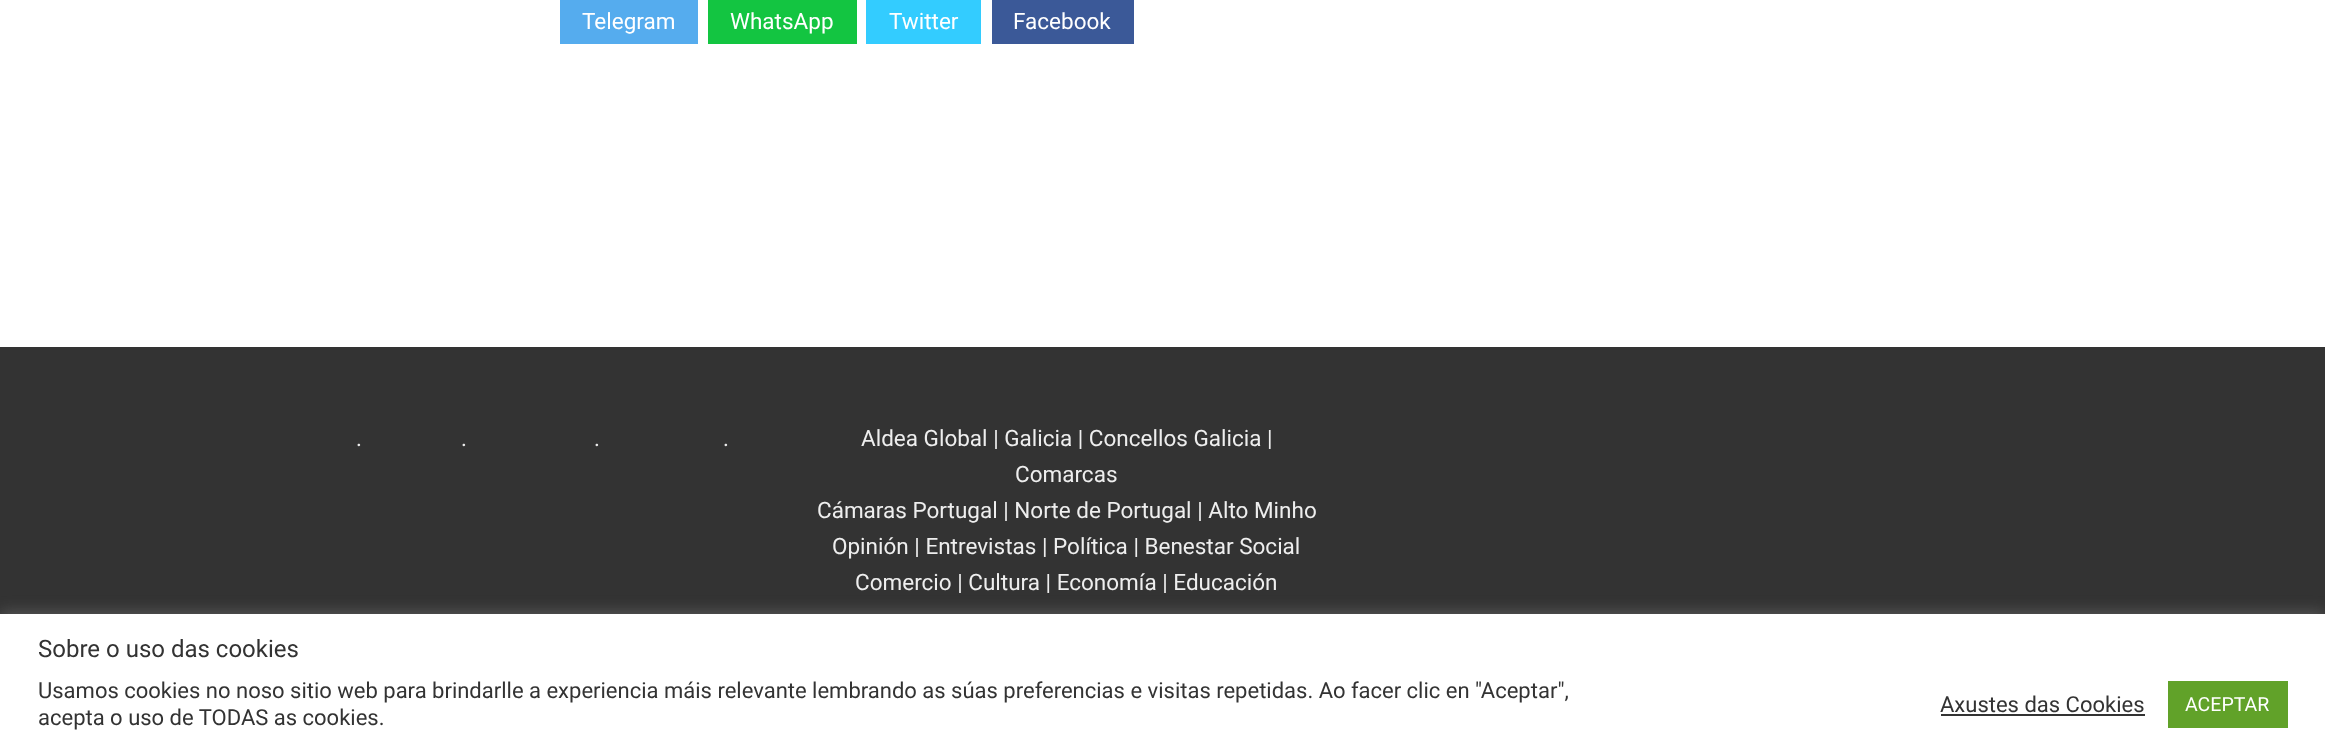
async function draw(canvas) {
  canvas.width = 2325;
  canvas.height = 755;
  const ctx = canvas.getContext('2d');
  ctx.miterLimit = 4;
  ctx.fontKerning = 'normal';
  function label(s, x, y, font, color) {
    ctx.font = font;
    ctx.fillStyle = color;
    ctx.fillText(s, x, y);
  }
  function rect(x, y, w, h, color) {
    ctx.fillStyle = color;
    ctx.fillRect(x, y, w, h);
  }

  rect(0, 0, 2325, 755, '#fff');
  rect(560, 0, 138, 44, '#55acee');
  label('Telegram', 582, 29, '22.5px Roboto', '#fff');
  rect(708, 0, 149, 44, '#13c541');
  label('WhatsApp', 730, 29, '22.5px Roboto', '#fff');
  rect(866, 0, 115, 44, '#3cf');
  label('Twitter', 889, 29, '22.5px Roboto', '#fff');
  rect(992, 0, 142, 44, '#3b5998');
  label('Facebook', 1013, 29, '22.5px Roboto', '#fff');
  rect(0, 347, 2325, 267, '#333');
  label('.', 356, 446, '22.5px Roboto', '#eee');
  label('.', 461, 446, '22.5px Roboto', '#eee');
  label('.', 594, 446, '22.5px Roboto', '#eee');
  label('.', 723, 446, '22.5px Roboto', '#eee');
  label('Aldea Global | Galicia | Concellos Galicia |', 861, 446, '22.5px Roboto', '#eee');
  label('Comarcas', 1015, 482, '22.5px Roboto', '#eee');
  label('Cámaras Portugal | Norte de Portugal | Alto Minho', 817, 518, '22.5px Roboto', '#eee');
  label('Opinión | Entrevistas | Política | Benestar Social', 832, 554, '22.5px Roboto', '#eee');
  label('Comercio | Cultura | Economía | Educación', 855, 590, '22.5px Roboto', '#eee');
  ctx.fillStyle = '#acabab4d';
  ctx.filter = 'blur(7.5px)';
  ctx.beginPath();
  ctx.rect(0, 612, 2325, 143);
  ctx.fill();
  ctx.filter = 'none';
  rect(0, 614, 2325, 141, '#fff');
  label('Sobre o uso das cookies', 38, 657, '24px Roboto', '#333');
  label('Usamos cookies no noso sitio web para brindarlle a experiencia máis relevante lembrando as súas preferencias e visitas repetidas. Ao facer clic en "Aceptar",', 38, 698, '22px Roboto', '#333');
  label('acepta o uso de TODAS as cookies.', 38, 725, '22px Roboto', '#333');
  label('Axustes das Cookies', 1940, 712, '22px Roboto', '#333');
  rect(1941, 714, 204, 2, '#333');
  rect(2168, 681, 120, 47, '#61a229');
  label('ACEPTAR', 2185, 711, '19.5px Roboto', '#fff');
}

draw(document.querySelector('canvas'));
